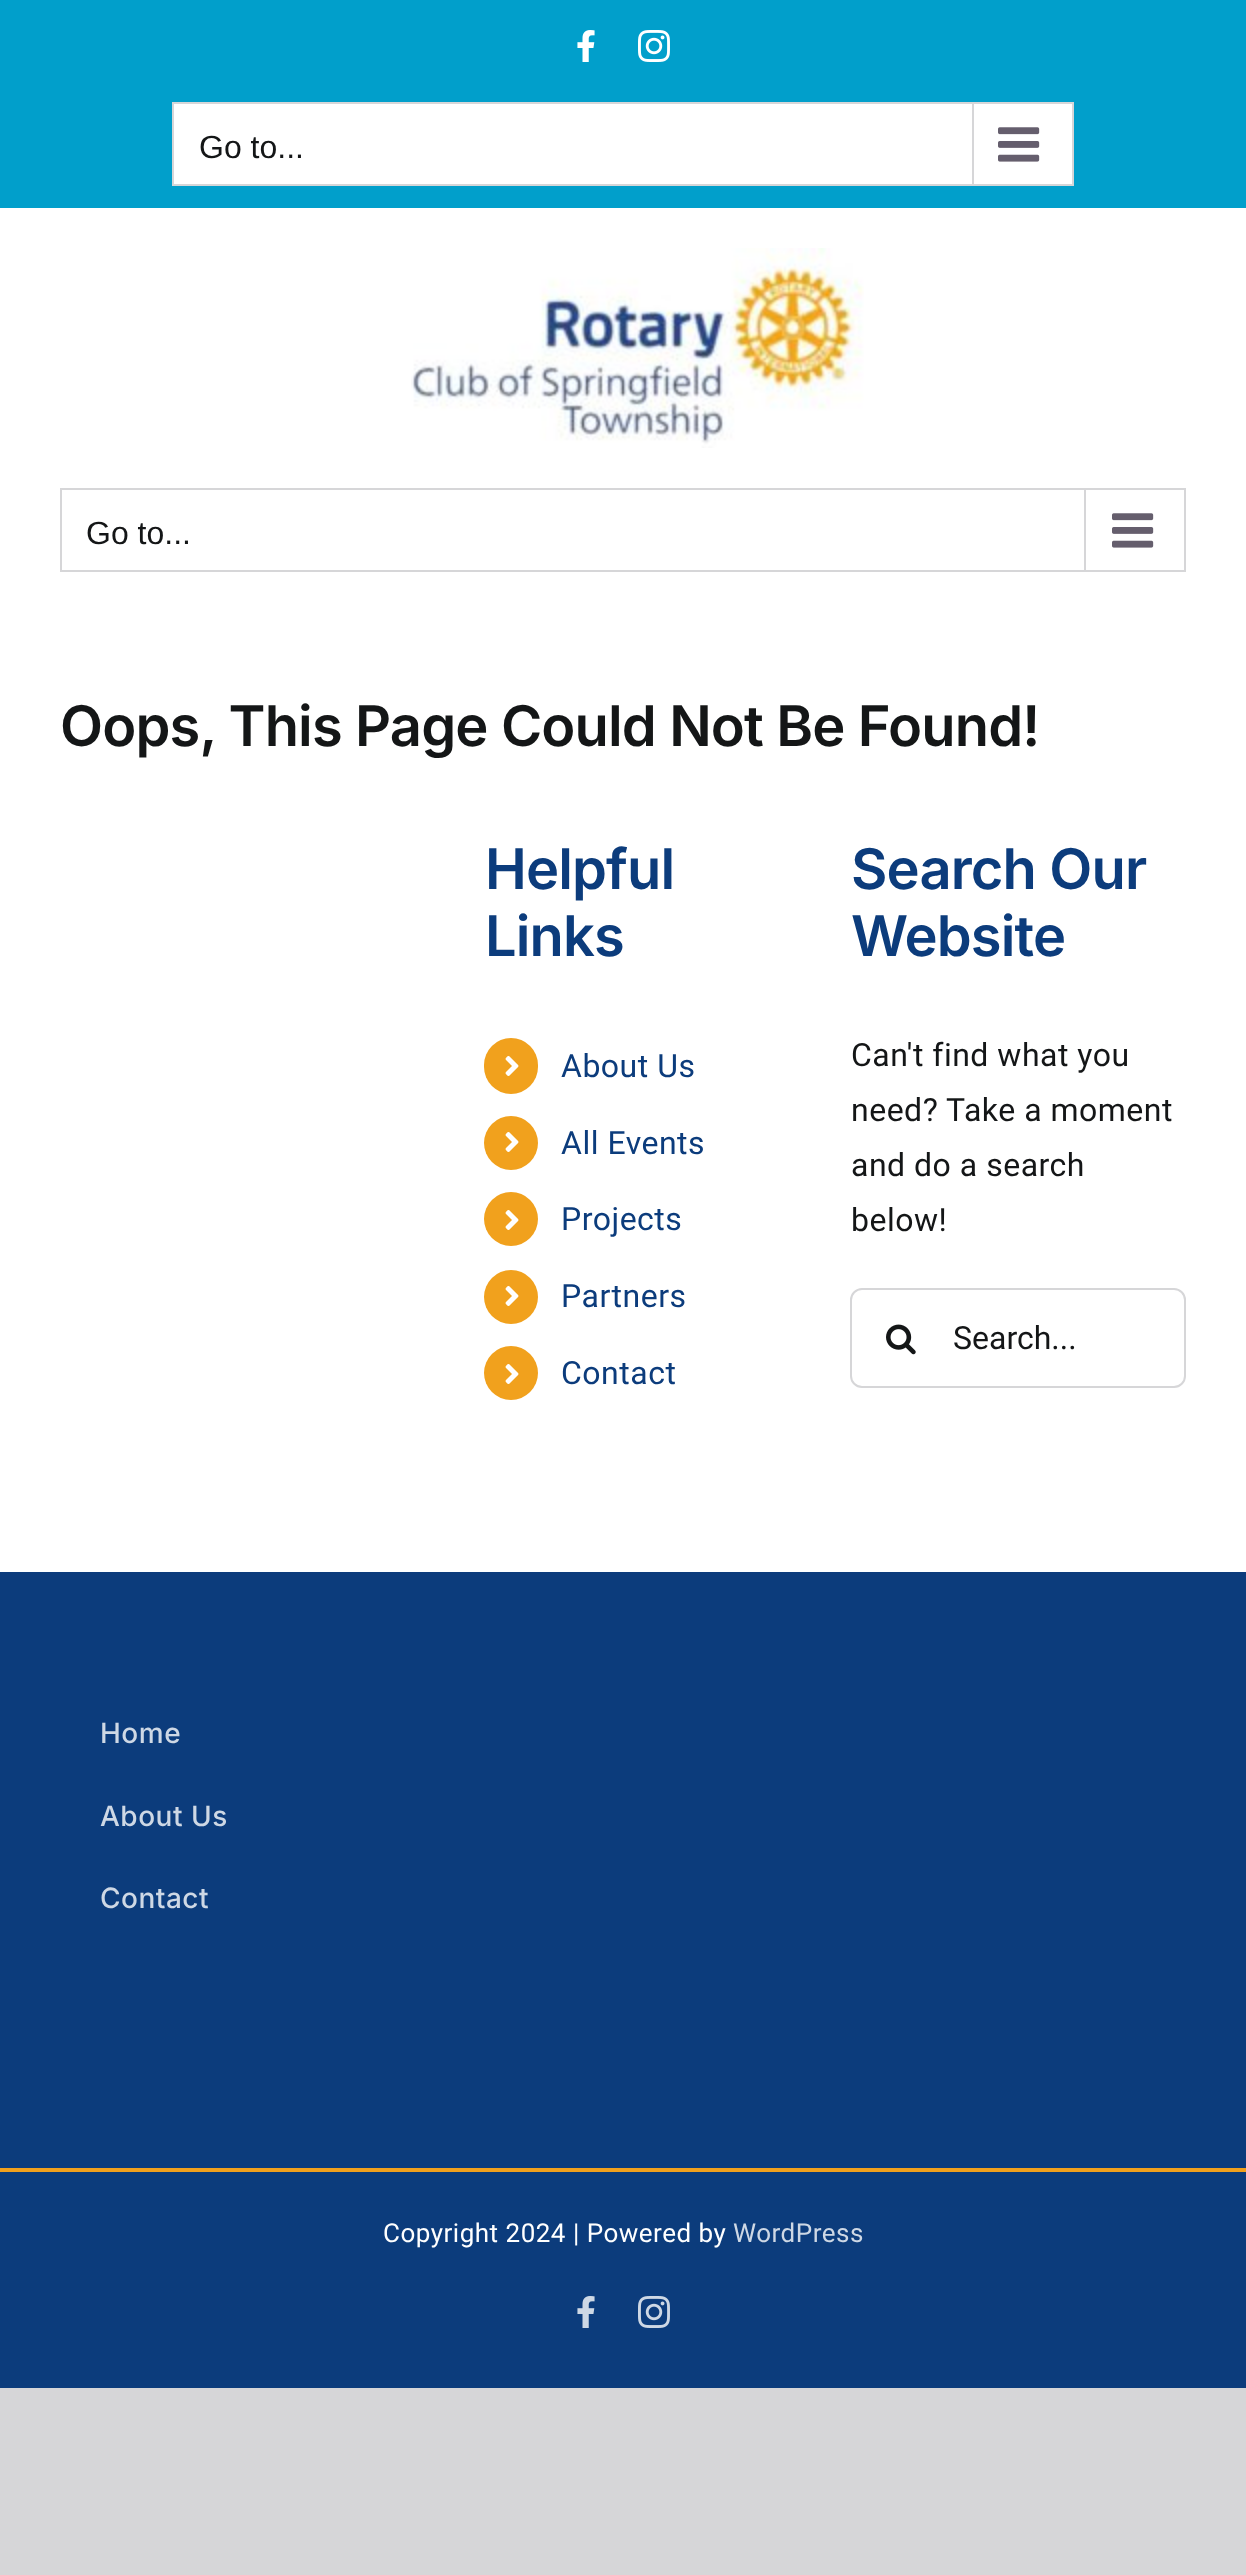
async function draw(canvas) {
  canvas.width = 1246;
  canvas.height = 2575;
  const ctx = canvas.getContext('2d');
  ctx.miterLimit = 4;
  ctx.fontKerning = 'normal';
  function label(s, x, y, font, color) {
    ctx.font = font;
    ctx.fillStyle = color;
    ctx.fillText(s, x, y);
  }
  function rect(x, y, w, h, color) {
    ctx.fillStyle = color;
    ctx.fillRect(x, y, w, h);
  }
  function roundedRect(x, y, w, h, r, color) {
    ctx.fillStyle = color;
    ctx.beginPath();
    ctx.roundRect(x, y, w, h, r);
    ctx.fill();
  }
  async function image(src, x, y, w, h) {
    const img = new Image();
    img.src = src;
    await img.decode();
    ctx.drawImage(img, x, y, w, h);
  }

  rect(0, 0, 1246, 2575, '#d6d6d8');
  rect(0, 208, 1246, 1364, '#fff');
  rect(0, 0, 1246, 208, '#019fcb');
  await image('assets/img1.png', 577, 30, 18, 32);
  await image('assets/img2.png', 638, 30, 32, 32);
  ctx.fillStyle = '#fff';
  ctx.beginPath();
  ctx.rect(173, 103, 900, 82);
  ctx.fill();
  ctx.strokeStyle = '#d6d6d8';
  ctx.lineWidth = 2;
  ctx.stroke();
  label('Go to...', 199, 158, '32px Liberation Sans', '#141617');
  rect(972, 104, 2, 80, '#d6d6d8');
  await image('assets/img3.png', 998, 127, 42, 35);
  await image('assets/img4.png', 411, 248, 453, 200);
  ctx.strokeRect(61, 489, 1124, 82);
  label('Go to...', 86, 544, '32px Liberation Sans', '#141617');
  rect(1084, 490, 2, 80, '#d6d6d8');
  await image('assets/img3.png', 1112, 513, 42, 35);
  ctx.letterSpacing = '-0.85px';
  label('Oops, This Page Could Not Be Found!', 60, 746, '600 56px Inter', '#141617');
  label('Helpful', 485, 889, '600 56px Inter', '#0c3c7c');
  label('Links', 485, 956, '600 56px Inter', '#0c3c7c');
  roundedRect(484, 1038, 54, 56, 27, '#f1a11d');
  await image('assets/img5.png', 505, 1056, 14, 20);
  ctx.letterSpacing = '0.5px';
  label('About Us', 561, 1077, '32px Roboto', '#0c3c7c');
  ctx.fillStyle = '#f1a11d';
  ctx.beginPath();
  ctx.arc(511, 1143, 27, 0, 2 * Math.PI);
  ctx.fill();
  await image('assets/img5.png', 505, 1132, 14, 20);
  label('All Events', 561, 1154, '32px Roboto', '#0c3c7c');
  ctx.fillStyle = '#f1a11d';
  ctx.beginPath();
  ctx.arc(511, 1219, 27, 0, 2 * Math.PI);
  ctx.fill();
  await image('assets/img5.png', 505, 1210, 14, 20);
  label('Projects', 561, 1230, '32px Roboto', '#0c3c7c');
  ctx.fillStyle = '#f1a11d';
  ctx.beginPath();
  ctx.arc(511, 1297, 27, 0, 2 * Math.PI);
  ctx.fill();
  await image('assets/img5.png', 505, 1286, 14, 20);
  label('Partners', 561, 1307, '32px Roboto', '#0c3c7c');
  ctx.fillStyle = '#f1a11d';
  ctx.beginPath();
  ctx.arc(511, 1373, 27, 0, 2 * Math.PI);
  ctx.fill();
  await image('assets/img5.png', 505, 1364, 14, 20);
  label('Contact', 561, 1384, '32px Roboto', '#0c3c7c');
  ctx.letterSpacing = '-0.85px';
  label('Search Our', 851, 889, '600 56px Inter', '#0c3c7c');
  label('Website', 851, 956, '600 56px Inter', '#0c3c7c');
  ctx.letterSpacing = '0.5px';
  label('Can\'t find what you', 851, 1066, '32px Roboto', '#141617');
  label('need? Take a moment', 851, 1121, '32px Roboto', '#141617');
  label('and do a search', 851, 1176, '32px Roboto', '#141617');
  label('below!', 851, 1231, '32px Roboto', '#141617');
  ctx.beginPath();
  ctx.roundRect(851, 1289, 334, 98, 11);
  ctx.stroke();
  await image('assets/img6.png', 886, 1324, 30, 31);
  ctx.letterSpacing = '0px';
  label('Search...', 953, 1349, '32px Roboto', '#141617');
  rect(0, 1572, 1246, 596, '#0c3c7c');
  ctx.letterSpacing = '0.5px';
  label('Home', 100, 1743, '500 28px Inter', '#ced8e5');
  label('About Us', 100, 1826, '500 28px Inter', '#ced8e5');
  label('Contact', 100, 1908, '500 28px Inter', '#ced8e5');
  rect(0, 2172, 1246, 216, '#0c3c7c');
  rect(0, 2168, 1246, 4, '#f1a11d');
  label('Copyright 2024 | Powered by', 383, 2242, '26px Roboto', '#fff');
  label('WordPress', 733, 2242, '26px Roboto', '#ced8e5');
  await image('assets/img7.png', 577, 2296, 18, 32);
  await image('assets/img8.png', 638, 2296, 32, 32);
}

draw(document.querySelector('canvas'));
